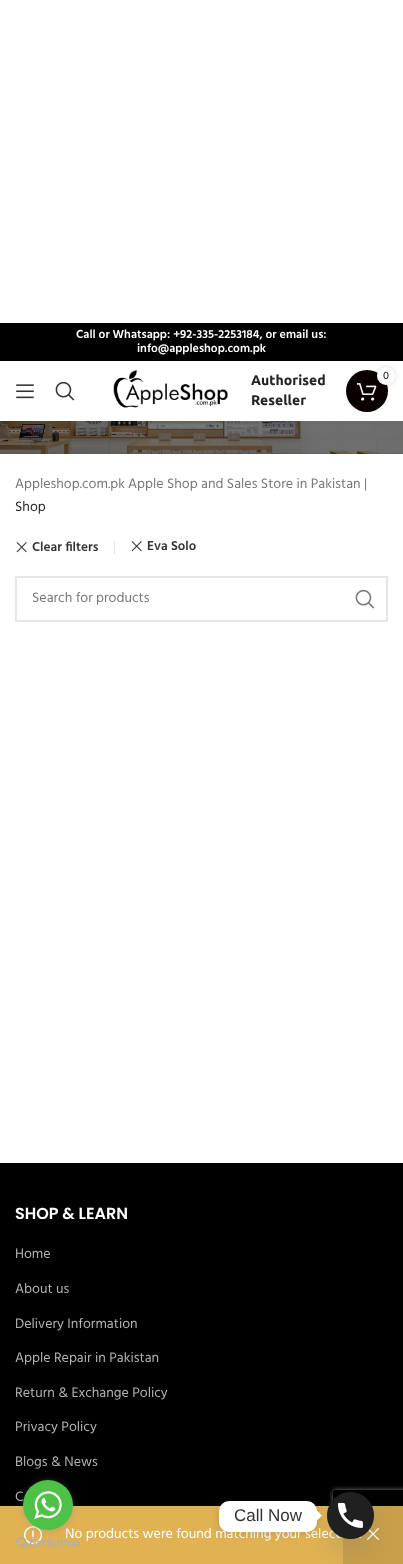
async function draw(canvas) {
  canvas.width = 403;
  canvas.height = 1564;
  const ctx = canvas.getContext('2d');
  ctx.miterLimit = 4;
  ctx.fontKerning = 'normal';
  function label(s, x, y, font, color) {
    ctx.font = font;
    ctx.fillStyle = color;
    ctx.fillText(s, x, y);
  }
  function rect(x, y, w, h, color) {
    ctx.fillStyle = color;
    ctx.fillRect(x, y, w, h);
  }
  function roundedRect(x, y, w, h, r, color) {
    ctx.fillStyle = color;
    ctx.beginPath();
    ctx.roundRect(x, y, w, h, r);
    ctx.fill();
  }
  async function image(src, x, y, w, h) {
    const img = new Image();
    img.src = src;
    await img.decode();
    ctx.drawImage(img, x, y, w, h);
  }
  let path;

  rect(0, 0, 403, 1564, '#fff');
  rect(0, 323, 403, 38, '#000');
  label('Call or Whatsapp: +92-335-2253184, or email us:', 76, 338, '600 12px Hind', '#fff');
  label('info@appleshop.com.pk', 137, 352, '600 12px Hind', '#fff');
  await image('assets/img1.png', 16, 384, 18, 15);
  await image('assets/img2.png', 55, 381, 20, 20);
  await image('assets/img3.png', 113, 370, 115, 38);
  label('Authorised', 251, 385, 'bold 14px Ubuntu', '#242424');
  label('Reseller', 251, 405, 'bold 14px Ubuntu', '#242424');
  ctx.fillStyle = '#0a0000';
  ctx.beginPath();
  ctx.arc(367, 391, 21, 0, 2 * Math.PI);
  ctx.fill();
  await image('assets/img4.png', 357, 383, 20, 18);
  ctx.fillStyle = '#0000002b';
  ctx.filter = 'blur(2px)';
  ctx.beginPath();
  ctx.roundRect(377, 367, 18, 18, 9);
  ctx.fill();
  ctx.filter = 'none';
  ctx.fillStyle = '#fff';
  ctx.beginPath();
  ctx.arc(386, 376, 9, 0, 2 * Math.PI);
  ctx.fill();
  label('0', 383, 379, '11px Hind', '#0a0000');
  await image('assets/img5.png', 0, 421, 403, 33);
  label('Appleshop.com.pk', 15, 488, '14px Hind', '#777');
  label('Apple Shop and Sales Store in Pakistan', 128, 488, '14px Hind', '#777');
  label('|', 364, 488, '14px Hind', '#777');
  label('Shop', 15, 511, '14px Hind', '#242424');
  rect(114, 541, 1, 13, '#e4e4e4');
  await image('assets/img6.png', 16, 542, 11, 11);
  label('Clear filters', 32, 551, '600 13.25px Hind', '#333');
  await image('assets/img6.png', 131, 541, 11, 11);
  label('Eva Solo', 147, 550, '600 13.25px Hind', '#333');
  ctx.strokeStyle = '#e6e6e6';
  ctx.lineWidth = 2;
  ctx.strokeRect(16, 577, 371, 44);
  label('Search for products', 32, 602, '14px Hind', '#777');
  await image('assets/img7.png', 355, 589, 20, 20);
  rect(0, 1163, 403, 343, '#000');
  ctx.save();
  path = new Path2D('M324 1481H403V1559H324ZM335 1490H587C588 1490 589 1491 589 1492V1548C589 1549 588 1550 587 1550H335C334 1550 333 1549 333 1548V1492C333 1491 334 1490 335 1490Z');
  ctx.clip(path, 'evenodd');
  ctx.fillStyle = '#808080';
  ctx.filter = 'blur(2.5px)';
  ctx.beginPath();
  ctx.roundRect(333, 1490, 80, 60, 2);
  ctx.fill();
  ctx.filter = 'none';
  ctx.restore();
  rect(0, 1506, 403, 58, '#e0b252');
  await image('assets/img8.png', 24, 1526, 18, 19);
  label('No products were found matching your selecti', 65, 1538, '14px Hind', '#fff');
  rect(343, 1506, 60, 58, '#0000001a');
  await image('assets/img9.png', 366, 1527, 14, 14);
  label('.', 359, 1538, '14px Hind', '#fff');
  label('SHOP & LEARN', 15, 1219, '600 16px Poppins', '#fff');
  label('Home', 15, 1258, '14px Hind', '#b3b3b3');
  label('About us', 15, 1293, '14px Hind', '#b3b3b3');
  label('Delivery Information', 15, 1328, '14px Hind', '#b3b3b3');
  label('Apple Repair in Pakistan', 15, 1362, '14px Hind', '#b3b3b3');
  label('Return & Exchange Policy', 15, 1397, '14px Hind', '#b3b3b3');
  label('Privacy Policy', 15, 1431, '14px Hind', '#b3b3b3');
  label('Blogs & News', 15, 1466, '14px Hind', '#b3b3b3');
  label('C', 15, 1501, '14px Hind', '#b3b3b3');
  await image('assets/img11.png', 16, 1537, 64, 11);
  ctx.fillStyle = '#88888866';
  ctx.filter = 'blur(3.5px)';
  ctx.beginPath();
  ctx.roundRect(23, 1481, 50, 50, 25);
  ctx.fill();
  ctx.filter = 'none';
  ctx.fillStyle = '#4dc247';
  ctx.beginPath();
  ctx.arc(48, 1505, 25, 0, 2 * Math.PI);
  ctx.fill();
  await image('assets/img10.png', 34, 1491, 28, 28);
  ctx.fillStyle = '#49687e29';
  ctx.filter = 'blur(12px)';
  ctx.beginPath();
  ctx.roundRect(327, 1508, 47, 47, 23.5);
  ctx.fill();
  ctx.filter = 'none';
  await image('assets/img12.png', 327, 1492, 47, 47);
  ctx.fillStyle = '#00000026';
  ctx.filter = 'blur(4px)';
  ctx.beginPath();
  ctx.roundRect(219, 1502, 98, 31, 10);
  ctx.fill();
  ctx.filter = 'none';
  roundedRect(219, 1501, 98, 31, 10, '#fff');
  label('Call Now', 234, 1521, '17px Liberation Sans', '#333');
  ctx.fillStyle = '#fff';
  path = new Path2D('M317 1520.5V1510.5L322 1515.5Z');
  ctx.fill(path);
}

draw(document.querySelector('canvas'));
